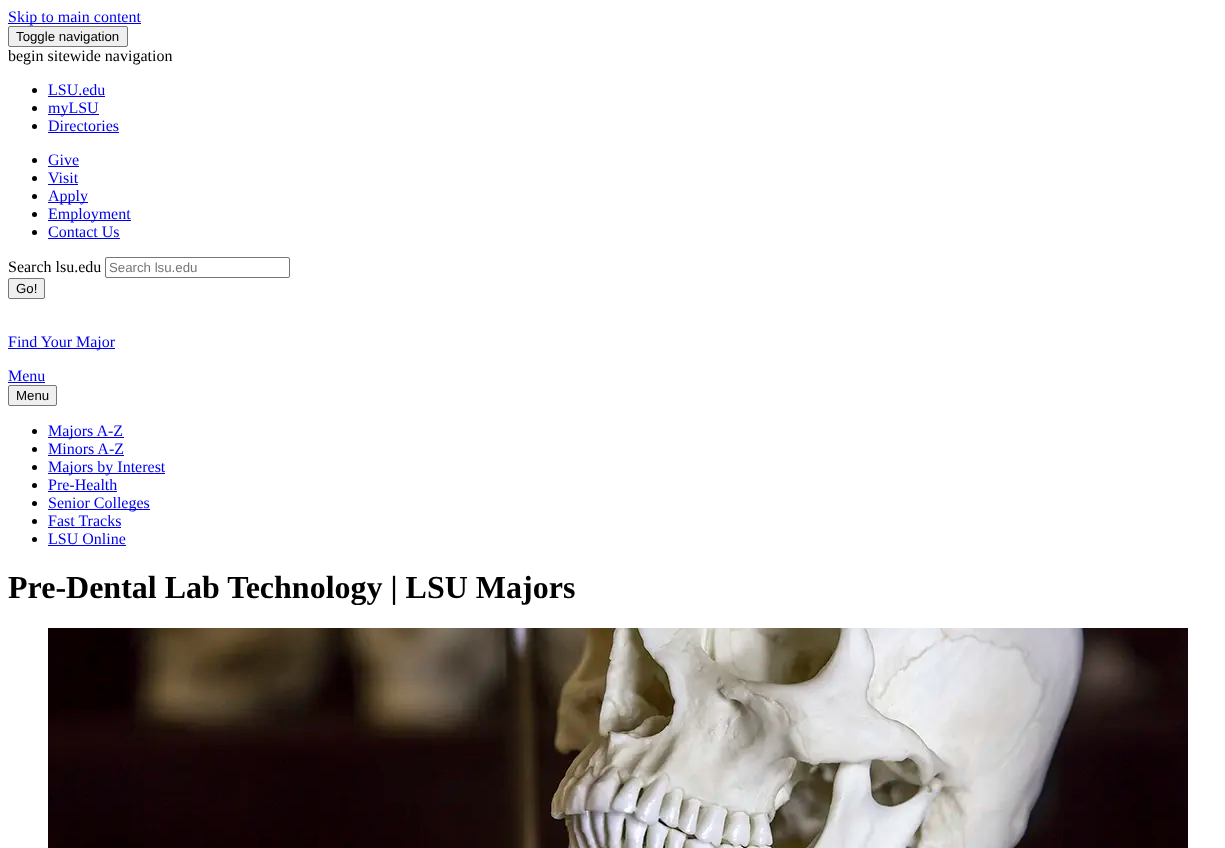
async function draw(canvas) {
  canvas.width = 1225;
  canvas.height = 848;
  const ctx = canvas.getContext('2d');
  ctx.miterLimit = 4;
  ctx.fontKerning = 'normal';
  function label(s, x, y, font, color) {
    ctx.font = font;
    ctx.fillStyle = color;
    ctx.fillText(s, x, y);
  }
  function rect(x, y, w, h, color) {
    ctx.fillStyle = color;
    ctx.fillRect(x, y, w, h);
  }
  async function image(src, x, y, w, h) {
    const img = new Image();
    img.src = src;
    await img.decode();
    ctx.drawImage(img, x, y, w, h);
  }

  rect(0, 0, 1225, 848, '#fff');
  rect(8, 23, 133, 1, '#00e');
  label('Skip to main content', 8, 22, '16px Liberation Serif', '#00e');
  ctx.fillStyle = '#efefef';
  ctx.beginPath();
  ctx.roundRect(8.5, 26.5, 119, 20, 1.5);
  ctx.fill();
  ctx.strokeStyle = '#767676';
  ctx.stroke();
  label('Toggle navigation', 16, 41, '13.25px Liberation Sans', '#000');
  label('begin sitewide navigation', 8, 61, '16px Liberation Serif', '#000');
  ctx.beginPath();
  ctx.arc(34.5, 90.5, 2.5, 0, 2 * Math.PI);
  ctx.fill();
  label('LSU.edu', 48, 95, '16px Liberation Serif', '#00e');
  rect(48, 96, 57, 1, '#00e');
  ctx.fillStyle = '#000';
  ctx.beginPath();
  ctx.arc(34.5, 108.5, 2.5, 0, 2 * Math.PI);
  ctx.fill();
  rect(48, 114, 51, 1, '#00e');
  label('myLSU', 48, 113, '16px Liberation Serif', '#00e');
  ctx.fillStyle = '#000';
  ctx.beginPath();
  ctx.arc(34.5, 126.5, 2.5, 0, 2 * Math.PI);
  ctx.fill();
  label('Directories', 48, 131, '16px Liberation Serif', '#00e');
  rect(48, 132, 71, 1, '#00e');
  ctx.fillStyle = '#000';
  ctx.beginPath();
  ctx.arc(34.5, 160.5, 2.5, 0, 2 * Math.PI);
  ctx.fill();
  label('Give', 48, 165, '16px Liberation Serif', '#00e');
  rect(48, 166, 31, 1, '#00e');
  ctx.fillStyle = '#000';
  ctx.beginPath();
  ctx.arc(34.5, 178.5, 2.5, 0, 2 * Math.PI);
  ctx.fill();
  label('Visit', 48, 183, '16px Liberation Serif', '#00e');
  rect(48, 184, 30, 1, '#00e');
  ctx.fillStyle = '#000';
  ctx.beginPath();
  ctx.arc(34.5, 196.5, 2.5, 0, 2 * Math.PI);
  ctx.fill();
  rect(48, 202, 40, 1, '#00e');
  label('Apply', 48, 201, '16px Liberation Serif', '#00e');
  ctx.fillStyle = '#000';
  ctx.beginPath();
  ctx.arc(34.5, 214.5, 2.5, 0, 2 * Math.PI);
  ctx.fill();
  rect(48, 220, 83, 1, '#00e');
  label('Employment', 48, 219, '16px Liberation Serif', '#00e');
  ctx.fillStyle = '#000';
  ctx.beginPath();
  ctx.arc(34.5, 232.5, 2.5, 0, 2 * Math.PI);
  ctx.fill();
  label('Contact Us', 48, 237, '16px Liberation Serif', '#00e');
  rect(48, 238, 72, 1, '#00e');
  label('Search lsu.edu', 8, 272, '16px Liberation Serif', '#000');
  ctx.beginPath();
  ctx.roundRect(105.5, 257.5, 184, 20, 1.5);
  ctx.stroke();
  label('Search lsu.edu', 109, 272, '13.25px Liberation Sans', '#757575');
  ctx.fillStyle = '#efefef';
  ctx.beginPath();
  ctx.roundRect(8.5, 278.5, 36, 20, 1.5);
  ctx.fill();
  ctx.stroke();
  label('Go!', 16, 293, '13.25px Liberation Sans', '#000');
  rect(8, 348, 107, 1, '#00e');
  label('Find Your Major', 8, 347, '16px Liberation Serif', '#00e');
  label('Menu', 8, 381, '16px Liberation Serif', '#00e');
  rect(8, 382, 37, 1, '#00e');
  ctx.fillStyle = '#efefef';
  ctx.beginPath();
  ctx.roundRect(8.5, 385.5, 48, 20, 1.5);
  ctx.fill();
  ctx.stroke();
  label('Menu', 16, 400, '13.25px Liberation Sans', '#000');
  ctx.beginPath();
  ctx.arc(34.5, 431.5, 2.5, 0, 2 * Math.PI);
  ctx.fill();
  rect(48, 437, 76, 1, '#00e');
  label('Majors A-Z', 48, 436, '16px Liberation Serif', '#00e');
  ctx.fillStyle = '#000';
  ctx.beginPath();
  ctx.arc(34.5, 449.5, 2.5, 0, 2 * Math.PI);
  ctx.fill();
  label('Minors A-Z', 48, 454, '16px Liberation Serif', '#00e');
  rect(48, 455, 76, 1, '#00e');
  ctx.fillStyle = '#000';
  ctx.beginPath();
  ctx.arc(34.5, 467.5, 2.5, 0, 2 * Math.PI);
  ctx.fill();
  rect(48, 473, 117, 1, '#00e');
  label('Majors by Interest', 48, 472, '16px Liberation Serif', '#00e');
  ctx.fillStyle = '#000';
  ctx.beginPath();
  ctx.arc(34.5, 485.5, 2.5, 0, 2 * Math.PI);
  ctx.fill();
  label('Pre-Health', 48, 490, '16px Liberation Serif', '#00e');
  rect(48, 491, 69, 1, '#00e');
  ctx.fillStyle = '#000';
  ctx.beginPath();
  ctx.arc(34.5, 503.5, 2.5, 0, 2 * Math.PI);
  ctx.fill();
  rect(48, 509, 102, 1, '#00e');
  label('Senior Colleges', 48, 508, '16px Liberation Serif', '#00e');
  ctx.fillStyle = '#000';
  ctx.beginPath();
  ctx.arc(34.5, 521.5, 2.5, 0, 2 * Math.PI);
  ctx.fill();
  label('Fast Tracks', 48, 526, '16px Liberation Serif', '#00e');
  rect(48, 527, 73, 1, '#00e');
  ctx.fillStyle = '#000';
  ctx.beginPath();
  ctx.arc(34.5, 539.5, 2.5, 0, 2 * Math.PI);
  ctx.fill();
  label('LSU Online', 48, 544, '16px Liberation Serif', '#00e');
  rect(48, 545, 78, 1, '#00e');
  label('Pre-Dental Lab Technology | LSU Majors', 8, 598, 'bold 32px Liberation Serif', '#000');
  await image('assets/img1.png', 48, 628, 1140, 220);
}

draw(document.querySelector('canvas'));
